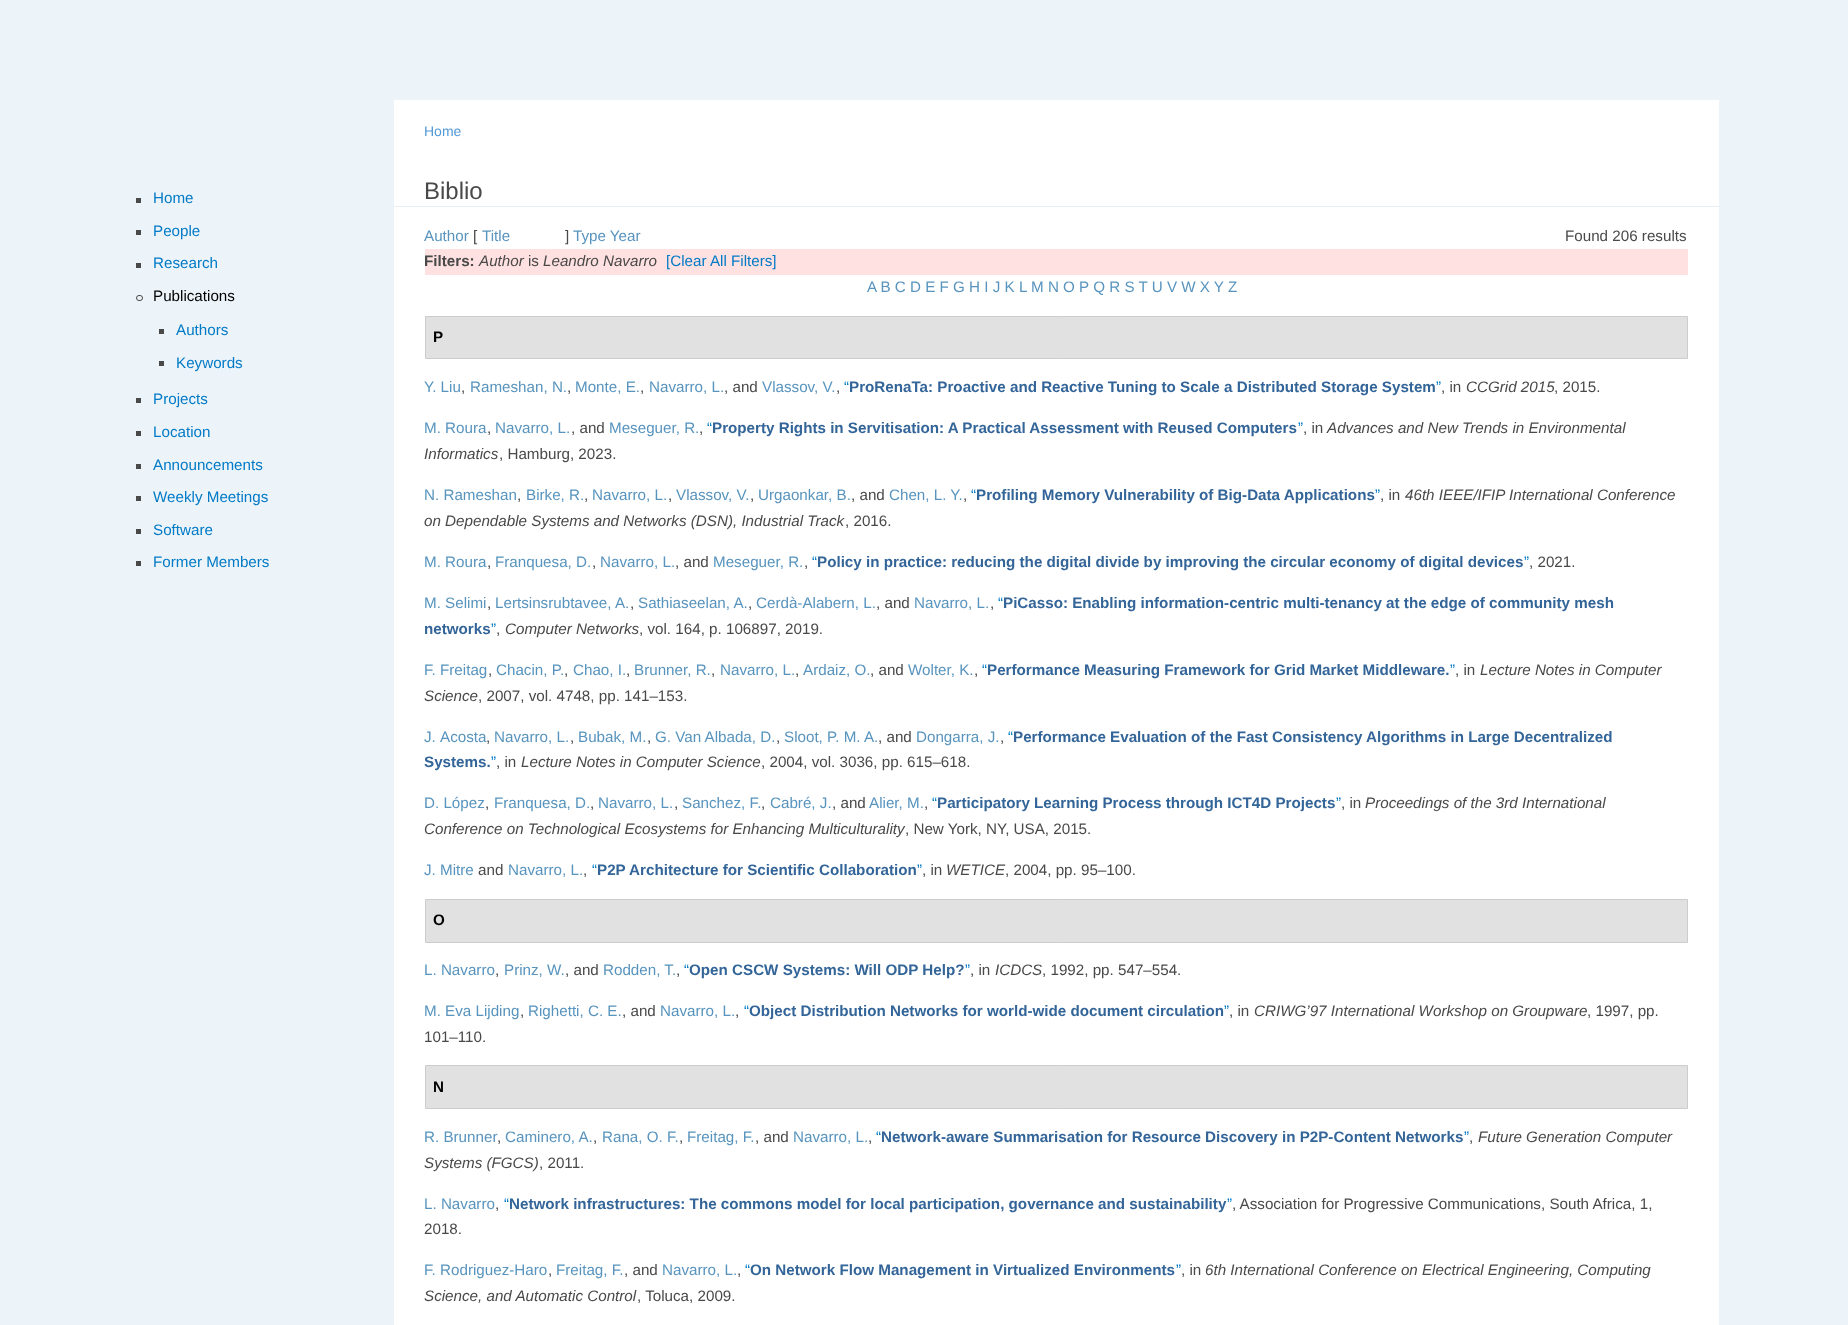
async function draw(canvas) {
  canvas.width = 1848;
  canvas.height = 1325;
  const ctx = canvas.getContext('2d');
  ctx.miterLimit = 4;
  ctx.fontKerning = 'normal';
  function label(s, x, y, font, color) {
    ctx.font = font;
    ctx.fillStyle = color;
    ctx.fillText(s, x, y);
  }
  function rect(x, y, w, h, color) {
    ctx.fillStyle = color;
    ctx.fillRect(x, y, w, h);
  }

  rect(0, 0, 1848, 1325, '#edf4f9');
  rect(136, 198, 5, 5, '#494949');
  label('Home', 153, 203, '15.2px Liberation Sans', '#027ac6');
  rect(136, 230, 5, 5, '#494949');
  label('People', 153, 236, '15.2px Liberation Sans', '#027ac6');
  rect(136, 263, 5, 5, '#494949');
  label('Research', 153, 268, '15.2px Liberation Sans', '#027ac6');
  ctx.beginPath();
  ctx.roundRect(136.5, 295.5, 6, 5, 2.5);
  ctx.strokeStyle = '#494949';
  ctx.stroke();
  label('Publications', 153, 301, '15.2px Liberation Sans', '#000');
  rect(159, 329, 5, 5, '#494949');
  label('Authors', 176, 335, '15.2px Liberation Sans', '#027ac6');
  rect(159, 361, 5, 5, '#494949');
  label('Keywords', 176, 368, '15.2px Liberation Sans', '#027ac6');
  rect(136, 398, 5, 5, '#494949');
  label('Projects', 153, 404, '15.2px Liberation Sans', '#027ac6');
  rect(136, 431, 5, 5, '#494949');
  label('Location', 153, 437, '15.2px Liberation Sans', '#027ac6');
  rect(136, 464, 5, 5, '#494949');
  label('Announcements', 153, 470, '15.2px Liberation Sans', '#027ac6');
  rect(136, 496, 5, 5, '#494949');
  label('Weekly Meetings', 153, 502, '15.2px Liberation Sans', '#027ac6');
  rect(136, 529, 5, 5, '#494949');
  label('Software', 153, 535, '15.2px Liberation Sans', '#027ac6');
  rect(136, 561, 5, 5, '#494949');
  label('Former Members', 153, 567, '15.2px Liberation Sans', '#027ac6');
  rect(394, 100, 1325, 1225, '#fff');
  label('Home', 424, 136, '14px Liberation Sans', '#5299d6');
  rect(393, 206, 1327, 1, '#e9eef3');
  label('Biblio', 424, 199, '24px Liberation Sans', '#494949');
  label('Author', 424, 241, '15.2px Liberation Sans', '#5894be');
  label('[', 473, 241, '15.2px Liberation Sans', '#494949');
  label('Title', 482, 241, '15.2px Liberation Sans', '#5894be');
  label(']', 565, 241, '15.2px Liberation Sans', '#494949');
  label('Type Year', 573, 241, '15.2px Liberation Sans', '#5894be');
  label('Found 206 results', 1565, 241, '15.2px Liberation Sans', '#494949');
  rect(425, 249, 1263, 26, '#ffe1e1');
  label('Filters:', 424, 266, 'bold 15.2px Liberation Sans', '#494949');
  label('Author', 479, 266, 'italic 15.2px Liberation Sans', '#494949');
  label('is', 528, 266, '15.2px Liberation Sans', '#494949');
  label('Leandro Navarro', 543, 266, 'italic 15.2px Liberation Sans', '#494949');
  label('[Clear All Filters]', 666, 266, '15.2px Liberation Sans', '#027ac6');
  label('A B C D E F G H I J K L M N O P Q R S T U V W X Y Z', 867, 292, '15.2px Liberation Sans', '#5894be');
  ctx.fillStyle = '#e1e1e1';
  ctx.beginPath();
  ctx.rect(425.5, 316.5, 1262, 42);
  ctx.fill();
  ctx.strokeStyle = '#ccc';
  ctx.stroke();
  label('P', 433, 342, 'bold 15.2px Liberation Sans', '#000');
  label('Y. Liu', 424, 392, '15.2px Liberation Sans', '#5894be');
  label(',', 461, 392, '15.2px Liberation Sans', '#494949');
  label('Rameshan, N.', 470, 392, '15.2px Liberation Sans', '#5894be');
  label(',', 567, 392, '15.2px Liberation Sans', '#494949');
  label('Monte, E.', 575, 392, '15.2px Liberation Sans', '#5894be');
  label(',', 640, 392, '15.2px Liberation Sans', '#494949');
  label('Navarro, L.', 649, 392, '15.2px Liberation Sans', '#5894be');
  label(', and', 724, 392, '15.2px Liberation Sans', '#494949');
  label('Vlassov, V.', 762, 392, '15.2px Liberation Sans', '#5894be');
  label(',', 836, 392, '15.2px Liberation Sans', '#494949');
  label('“', 844, 392, '15.2px Liberation Sans', '#027ac6');
  label('ProRenaTa: Proactive and Reactive Tuning to Scale a Distributed Storage System', 849, 392, 'bold 15.2px Liberation Sans', '#336599');
  label('”', 1436, 392, '15.2px Liberation Sans', '#027ac6');
  label(', in', 1441, 392, '15.2px Liberation Sans', '#494949');
  label('CCGrid 2015', 1466, 392, 'italic 15.2px Liberation Sans', '#494949');
  label(', 2015.', 1554, 392, '15.2px Liberation Sans', '#494949');
  label('M. Roura', 424, 433, '15.2px Liberation Sans', '#5894be');
  label(',', 487, 433, '15.2px Liberation Sans', '#494949');
  label('Navarro, L.', 495, 433, '15.2px Liberation Sans', '#5894be');
  label(', and', 571, 433, '15.2px Liberation Sans', '#494949');
  label('Meseguer, R.', 609, 433, '15.2px Liberation Sans', '#5894be');
  label(',', 699, 433, '15.2px Liberation Sans', '#494949');
  label('“', 707, 433, '15.2px Liberation Sans', '#027ac6');
  label('Property Rights in Servitisation: A Practical Assessment with Reused Computers', 712, 433, 'bold 15.2px Liberation Sans', '#336599');
  label('”', 1298, 433, '15.2px Liberation Sans', '#027ac6');
  label(', in', 1303, 433, '15.2px Liberation Sans', '#494949');
  label('Advances and New Trends in Environmental', 1327, 433, 'italic 15.2px Liberation Sans', '#494949');
  label('Informatics', 424, 459, 'italic 15.2px Liberation Sans', '#494949');
  label(', Hamburg, 2023.', 499, 459, '15.2px Liberation Sans', '#494949');
  label('N. Rameshan', 424, 500, '15.2px Liberation Sans', '#5894be');
  label(',', 517, 500, '15.2px Liberation Sans', '#494949');
  label('Birke, R.', 526, 500, '15.2px Liberation Sans', '#5894be');
  label(',', 584, 500, '15.2px Liberation Sans', '#494949');
  label('Navarro, L.', 592, 500, '15.2px Liberation Sans', '#5894be');
  label(',', 668, 500, '15.2px Liberation Sans', '#494949');
  label('Vlassov, V.', 676, 500, '15.2px Liberation Sans', '#5894be');
  label(',', 750, 500, '15.2px Liberation Sans', '#494949');
  label('Urgaonkar, B.', 758, 500, '15.2px Liberation Sans', '#5894be');
  label(', and', 851, 500, '15.2px Liberation Sans', '#494949');
  label('Chen, L. Y.', 889, 500, '15.2px Liberation Sans', '#5894be');
  label(',', 963, 500, '15.2px Liberation Sans', '#494949');
  label('“', 971, 500, '15.2px Liberation Sans', '#027ac6');
  label('Profiling Memory Vulnerability of Big-Data Applications', 976, 500, 'bold 15.2px Liberation Sans', '#336599');
  label('”', 1375, 500, '15.2px Liberation Sans', '#027ac6');
  label(', in', 1380, 500, '15.2px Liberation Sans', '#494949');
  label('46th IEEE/IFIP International Conference', 1405, 500, 'italic 15.2px Liberation Sans', '#494949');
  label('on Dependable Systems and Networks (DSN), Industrial Track', 424, 526, 'italic 15.2px Liberation Sans', '#494949');
  label(', 2016.', 845, 526, '15.2px Liberation Sans', '#494949');
  label('M. Roura', 424, 567, '15.2px Liberation Sans', '#5894be');
  label(',', 487, 567, '15.2px Liberation Sans', '#494949');
  label('Franquesa, D.', 495, 567, '15.2px Liberation Sans', '#5894be');
  label(',', 592, 567, '15.2px Liberation Sans', '#494949');
  label('Navarro, L.', 600, 567, '15.2px Liberation Sans', '#5894be');
  label(', and', 675, 567, '15.2px Liberation Sans', '#494949');
  label('Meseguer, R.', 713, 567, '15.2px Liberation Sans', '#5894be');
  label(',', 804, 567, '15.2px Liberation Sans', '#494949');
  label('“', 812, 567, '15.2px Liberation Sans', '#027ac6');
  label('Policy in practice: reducing the digital divide by improving the circular economy of digital devices', 817, 567, 'bold 15.2px Liberation Sans', '#336599');
  label('”', 1524, 567, '15.2px Liberation Sans', '#027ac6');
  label(', 2021.', 1529, 567, '15.2px Liberation Sans', '#494949');
  label('M. Selimi', 424, 608, '15.2px Liberation Sans', '#5894be');
  label(',', 487, 608, '15.2px Liberation Sans', '#494949');
  label('Lertsinsrubtavee, A.', 495, 608, '15.2px Liberation Sans', '#5894be');
  label(',', 630, 608, '15.2px Liberation Sans', '#494949');
  label('Sathiaseelan, A.', 638, 608, '15.2px Liberation Sans', '#5894be');
  label(',', 748, 608, '15.2px Liberation Sans', '#494949');
  label('Cerdà-Alabern, L.', 756, 608, '15.2px Liberation Sans', '#5894be');
  label(', and', 876, 608, '15.2px Liberation Sans', '#494949');
  label('Navarro, L.', 914, 608, '15.2px Liberation Sans', '#5894be');
  label(',', 990, 608, '15.2px Liberation Sans', '#494949');
  label('“', 998, 608, '15.2px Liberation Sans', '#027ac6');
  label('PiCasso: Enabling information-centric multi-tenancy at the edge of community mesh', 1003, 608, 'bold 15.2px Liberation Sans', '#336599');
  label('networks', 424, 634, 'bold 15.2px Liberation Sans', '#336599');
  label('”', 491, 634, '15.2px Liberation Sans', '#027ac6');
  label(',', 496, 634, '15.2px Liberation Sans', '#494949');
  label('Computer Networks', 505, 634, 'italic 15.2px Liberation Sans', '#494949');
  label(', vol. 164, p. 106897, 2019.', 639, 634, '15.2px Liberation Sans', '#494949');
  label('F. Freitag', 424, 675, '15.2px Liberation Sans', '#5894be');
  label(',', 488, 675, '15.2px Liberation Sans', '#494949');
  label('Chacin, P.', 496, 675, '15.2px Liberation Sans', '#5894be');
  label(',', 564, 675, '15.2px Liberation Sans', '#494949');
  label('Chao, I.', 573, 675, '15.2px Liberation Sans', '#5894be');
  label(',', 626, 675, '15.2px Liberation Sans', '#494949');
  label('Brunner, R.', 634, 675, '15.2px Liberation Sans', '#5894be');
  label(',', 711, 675, '15.2px Liberation Sans', '#494949');
  label('Navarro, L.', 720, 675, '15.2px Liberation Sans', '#5894be');
  label(',', 795, 675, '15.2px Liberation Sans', '#494949');
  label('Ardaiz, O.', 803, 675, '15.2px Liberation Sans', '#5894be');
  label(', and', 870, 675, '15.2px Liberation Sans', '#494949');
  label('Wolter, K.', 908, 675, '15.2px Liberation Sans', '#5894be');
  label(',', 974, 675, '15.2px Liberation Sans', '#494949');
  label('“', 982, 675, '15.2px Liberation Sans', '#027ac6');
  label('Performance Measuring Framework for Grid Market Middleware.', 987, 675, 'bold 15.2px Liberation Sans', '#336599');
  label('”', 1450, 675, '15.2px Liberation Sans', '#027ac6');
  label(', in', 1455, 675, '15.2px Liberation Sans', '#494949');
  label('Lecture Notes in Computer', 1480, 675, 'italic 15.2px Liberation Sans', '#494949');
  label('Science', 424, 701, 'italic 15.2px Liberation Sans', '#494949');
  label(', 2007, vol. 4748, pp. 141–153.', 478, 701, '15.2px Liberation Sans', '#494949');
  label('J.', 424, 742, '15.2px Liberation Sans', '#5894be');
  label('Acosta', 440, 742, '15.2px Liberation Sans', '#5894be');
  label(',', 486, 742, '15.2px Liberation Sans', '#494949');
  label('Navarro, L.', 494, 742, '15.2px Liberation Sans', '#5894be');
  label(',', 570, 742, '15.2px Liberation Sans', '#494949');
  label('Bubak, M.', 578, 742, '15.2px Liberation Sans', '#5894be');
  label(',', 647, 742, '15.2px Liberation Sans', '#494949');
  label('G. Van Albada, D.', 655, 742, '15.2px Liberation Sans', '#5894be');
  label(',', 776, 742, '15.2px Liberation Sans', '#494949');
  label('Sloot, P. M. A.', 784, 742, '15.2px Liberation Sans', '#5894be');
  label(', and', 878, 742, '15.2px Liberation Sans', '#494949');
  label('Dongarra, J.', 916, 742, '15.2px Liberation Sans', '#5894be');
  label(',', 1000, 742, '15.2px Liberation Sans', '#494949');
  label('“', 1008, 742, '15.2px Liberation Sans', '#027ac6');
  label('Performance Evaluation of the Fast Consistency Algorithms in Large Decentralized', 1013, 742, 'bold 15.2px Liberation Sans', '#336599');
  label('Systems.', 424, 767, 'bold 15.2px Liberation Sans', '#336599');
  label('”', 491, 767, '15.2px Liberation Sans', '#027ac6');
  label(', in', 496, 767, '15.2px Liberation Sans', '#494949');
  label('Lecture Notes in Computer Science', 521, 767, 'italic 15.2px Liberation Sans', '#494949');
  label(', 2004, vol. 3036, pp. 615–618.', 761, 767, '15.2px Liberation Sans', '#494949');
  label('D. López', 424, 808, '15.2px Liberation Sans', '#5894be');
  label(',', 485, 808, '15.2px Liberation Sans', '#494949');
  label('Franquesa, D.', 494, 808, '15.2px Liberation Sans', '#5894be');
  label(',', 590, 808, '15.2px Liberation Sans', '#494949');
  label('Navarro, L.', 598, 808, '15.2px Liberation Sans', '#5894be');
  label(',', 674, 808, '15.2px Liberation Sans', '#494949');
  label('Sanchez, F.', 682, 808, '15.2px Liberation Sans', '#5894be');
  label(',', 761, 808, '15.2px Liberation Sans', '#494949');
  label('Cabré, J.', 770, 808, '15.2px Liberation Sans', '#5894be');
  label(', and', 832, 808, '15.2px Liberation Sans', '#494949');
  label('Alier, M.', 869, 808, '15.2px Liberation Sans', '#5894be');
  label(',', 924, 808, '15.2px Liberation Sans', '#494949');
  label('“', 932, 808, '15.2px Liberation Sans', '#027ac6');
  label('Participatory Learning Process through ICT4D Projects', 937, 808, 'bold 15.2px Liberation Sans', '#336599');
  label('”', 1336, 808, '15.2px Liberation Sans', '#027ac6');
  label(', in', 1341, 808, '15.2px Liberation Sans', '#494949');
  label('Proceedings of the 3rd International', 1365, 808, 'italic 15.2px Liberation Sans', '#494949');
  label('Conference on Technological Ecosystems for Enhancing Multiculturality', 424, 834, 'italic 15.2px Liberation Sans', '#494949');
  label(', New York, NY, USA, 2015.', 905, 834, '15.2px Liberation Sans', '#494949');
  label('J. Mitre', 424, 875, '15.2px Liberation Sans', '#5894be');
  label('and', 478, 875, '15.2px Liberation Sans', '#494949');
  label('Navarro, L.', 508, 875, '15.2px Liberation Sans', '#5894be');
  label(',', 583, 875, '15.2px Liberation Sans', '#494949');
  label('“', 592, 875, '15.2px Liberation Sans', '#027ac6');
  label('P2P Architecture for Scientific Collaboration', 597, 875, 'bold 15.2px Liberation Sans', '#336599');
  label('”', 917, 875, '15.2px Liberation Sans', '#027ac6');
  label(', in', 922, 875, '15.2px Liberation Sans', '#494949');
  label('WETICE', 946, 875, 'italic 15.2px Liberation Sans', '#494949');
  label(', 2004, pp. 95–100.', 1005, 875, '15.2px Liberation Sans', '#494949');
  ctx.fillStyle = '#e1e1e1';
  ctx.beginPath();
  ctx.rect(425.5, 899.5, 1262, 43);
  ctx.fill();
  ctx.stroke();
  label('O', 433, 925, 'bold 15.2px Liberation Sans', '#000');
  label('L. Navarro', 424, 975, '15.2px Liberation Sans', '#5894be');
  label(',', 495, 975, '15.2px Liberation Sans', '#494949');
  label('Prinz, W.', 504, 975, '15.2px Liberation Sans', '#5894be');
  label(', and', 565, 975, '15.2px Liberation Sans', '#494949');
  label('Rodden, T.', 603, 975, '15.2px Liberation Sans', '#5894be');
  label(',', 676, 975, '15.2px Liberation Sans', '#494949');
  label('“', 684, 975, '15.2px Liberation Sans', '#027ac6');
  label('Open CSCW Systems: Will ODP Help?', 689, 975, 'bold 15.2px Liberation Sans', '#336599');
  label('”', 965, 975, '15.2px Liberation Sans', '#027ac6');
  label(', in', 970, 975, '15.2px Liberation Sans', '#494949');
  label('ICDCS', 995, 975, 'italic 15.2px Liberation Sans', '#494949');
  label(', 1992, pp. 547–554.', 1042, 975, '15.2px Liberation Sans', '#494949');
  label('M. Eva Lijding', 424, 1016, '15.2px Liberation Sans', '#5894be');
  label(',', 520, 1016, '15.2px Liberation Sans', '#494949');
  label('Righetti, C. E.', 528, 1016, '15.2px Liberation Sans', '#5894be');
  label(', and', 622, 1016, '15.2px Liberation Sans', '#494949');
  label('Navarro, L.', 660, 1016, '15.2px Liberation Sans', '#5894be');
  label(',', 735, 1016, '15.2px Liberation Sans', '#494949');
  label('“', 744, 1016, '15.2px Liberation Sans', '#027ac6');
  label('Object Distribution Networks for world-wide document circulation', 749, 1016, 'bold 15.2px Liberation Sans', '#336599');
  label('”', 1224, 1016, '15.2px Liberation Sans', '#027ac6');
  label(', in', 1229, 1016, '15.2px Liberation Sans', '#494949');
  label('CRIWG’97 International Workshop on Groupware', 1254, 1016, 'italic 15.2px Liberation Sans', '#494949');
  label(', 1997, pp.', 1587, 1016, '15.2px Liberation Sans', '#494949');
  label('101–110.', 424, 1042, '15.2px Liberation Sans', '#494949');
  ctx.fillStyle = '#e1e1e1';
  ctx.beginPath();
  ctx.rect(425.5, 1065.5, 1262, 43);
  ctx.fill();
  ctx.stroke();
  label('N', 433, 1092, 'bold 15.2px Liberation Sans', '#000');
  label('R. Brunner', 424, 1142, '15.2px Liberation Sans', '#5894be');
  label(',', 497, 1142, '15.2px Liberation Sans', '#494949');
  label('Caminero, A.', 505, 1142, '15.2px Liberation Sans', '#5894be');
  label(',', 593, 1142, '15.2px Liberation Sans', '#494949');
  label('Rana, O. F.', 602, 1142, '15.2px Liberation Sans', '#5894be');
  label(',', 679, 1142, '15.2px Liberation Sans', '#494949');
  label('Freitag, F.', 687, 1142, '15.2px Liberation Sans', '#5894be');
  label(', and', 755, 1142, '15.2px Liberation Sans', '#494949');
  label('Navarro, L.', 793, 1142, '15.2px Liberation Sans', '#5894be');
  label(',', 868, 1142, '15.2px Liberation Sans', '#494949');
  label('“', 876, 1142, '15.2px Liberation Sans', '#027ac6');
  label('Network-aware Summarisation for Resource Discovery in P2P-Content Networks', 881, 1142, 'bold 15.2px Liberation Sans', '#336599');
  label('”', 1464, 1142, '15.2px Liberation Sans', '#027ac6');
  label(',', 1469, 1142, '15.2px Liberation Sans', '#494949');
  label('Future Generation Computer', 1478, 1142, 'italic 15.2px Liberation Sans', '#494949');
  label('Systems (FGCS)', 424, 1168, 'italic 15.2px Liberation Sans', '#494949');
  label(', 2011.', 539, 1168, '15.2px Liberation Sans', '#494949');
  label('L. Navarro', 424, 1209, '15.2px Liberation Sans', '#5894be');
  label(',', 495, 1209, '15.2px Liberation Sans', '#494949');
  label('“', 504, 1209, '15.2px Liberation Sans', '#027ac6');
  label('Network infrastructures: The commons model for local participation, governance and sustainability', 509, 1209, 'bold 15.2px Liberation Sans', '#336599');
  label('”', 1227, 1209, '15.2px Liberation Sans', '#027ac6');
  label(', Association for Progressive Communications, South Africa, 1,', 1232, 1209, '15.2px Liberation Sans', '#494949');
  label('2018.', 424, 1234, '15.2px Liberation Sans', '#494949');
  label('F. Rodriguez-Haro', 424, 1275, '15.2px Liberation Sans', '#5894be');
  label(',', 548, 1275, '15.2px Liberation Sans', '#494949');
  label('Freitag, F.', 556, 1275, '15.2px Liberation Sans', '#5894be');
  label(', and', 624, 1275, '15.2px Liberation Sans', '#494949');
  label('Navarro, L.', 662, 1275, '15.2px Liberation Sans', '#5894be');
  label(',', 737, 1275, '15.2px Liberation Sans', '#494949');
  label('“', 745, 1275, '15.2px Liberation Sans', '#027ac6');
  label('On Network Flow Management in Virtualized Environments', 750, 1275, 'bold 15.2px Liberation Sans', '#336599');
  label('”', 1176, 1275, '15.2px Liberation Sans', '#027ac6');
  label(', in', 1181, 1275, '15.2px Liberation Sans', '#494949');
  label('6th International Conference on Electrical Engineering, Computing', 1205, 1275, 'italic 15.2px Liberation Sans', '#494949');
  label('Science, and Automatic Control', 424, 1301, 'italic 15.2px Liberation Sans', '#494949');
  label(', Toluca, 2009.', 637, 1301, '15.2px Liberation Sans', '#494949');
}

draw(document.querySelector('canvas'));
